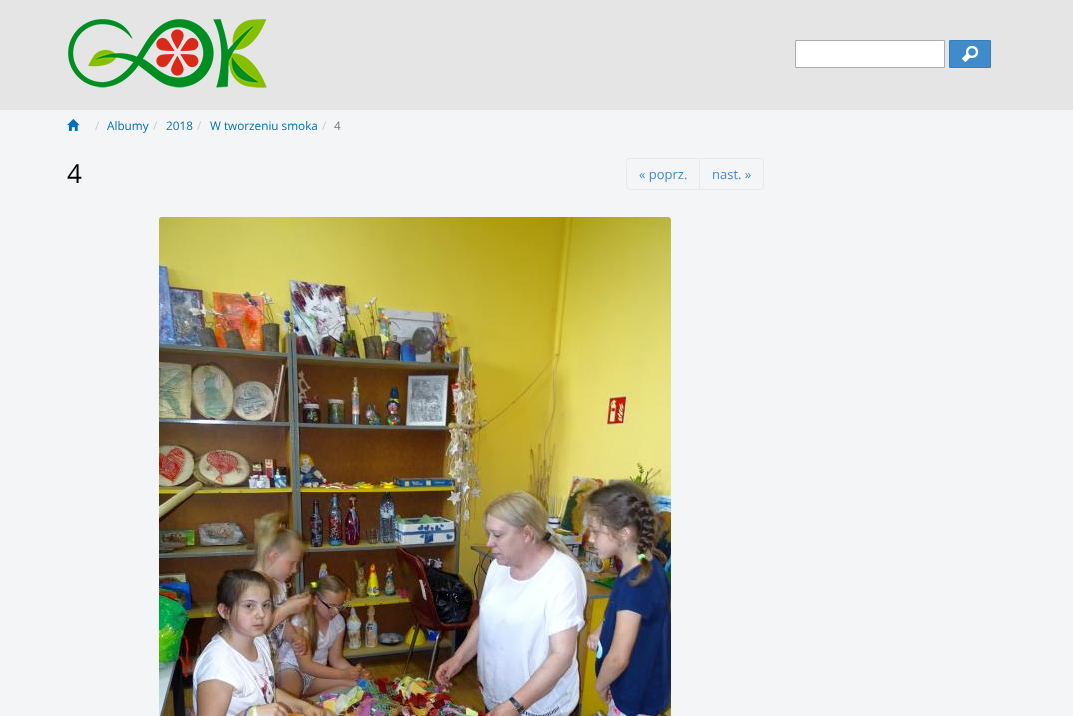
async function draw(canvas) {
  canvas.width = 1073;
  canvas.height = 716;
  const ctx = canvas.getContext('2d');
  ctx.miterLimit = 4;
  ctx.fontKerning = 'normal';
  function label(s, x, y, font, color) {
    ctx.font = font;
    ctx.fillStyle = color;
    ctx.fillText(s, x, y);
  }
  function rect(x, y, w, h, color) {
    ctx.fillStyle = color;
    ctx.fillRect(x, y, w, h);
  }
  async function image(src, x, y, w, h) {
    const img = new Image();
    img.src = src;
    await img.decode();
    ctx.drawImage(img, x, y, w, h);
  }

  rect(0, 0, 1073, 716, '#e5e5e5');
  await image('assets/img1.png', 68, 19, 199, 69);
  ctx.fillStyle = '#fff';
  ctx.beginPath();
  ctx.rect(795.5, 40.5, 149, 27);
  ctx.fill();
  ctx.strokeStyle = '#acacac';
  ctx.stroke();
  ctx.fillStyle = '#428bca';
  ctx.beginPath();
  ctx.roundRect(949.5, 40.5, 41, 27, 0.5);
  ctx.fill();
  ctx.strokeStyle = '#357ebd';
  ctx.stroke();
  await image('assets/img2.png', 962, 46, 16, 16);
  rect(0, 110, 1073, 606, '#f4f5f6');
  await image('assets/img3.png', 67, 119, 13, 12);
  label('/', 95, 130, '11.75px Open Sans', '#ccc');
  label('Albumy', 107, 130, '11.75px Open Sans', '#0070be');
  label('/', 153, 130, '11.75px Open Sans', '#ccc');
  label('2018', 166, 130, '11.75px Open Sans', '#0070be');
  label('/', 197, 130, '11.75px Open Sans', '#ccc');
  label('W tworzeniu smoka', 210, 130, '11.75px Open Sans', '#0070be');
  label('/', 322, 130, '11.75px Open Sans', '#ccc');
  label('4', 334, 130, '11.75px Open Sans', '#777');
  label('4', 67, 183, '26px Open Sans', '#000');
  ctx.beginPath();
  ctx.roundRect(626.5, 158.5, 73, 31, [3.5, 0, 0, 3.5]);
  ctx.strokeStyle = '#e6e9ea';
  ctx.stroke();
  label('« poprz.', 639, 179, '13px Open Sans', '#428bca');
  ctx.fillStyle = '#f4f5f6';
  ctx.beginPath();
  ctx.roundRect(699.5, 158.5, 64, 31, [0, 3.5, 3.5, 0]);
  ctx.fill();
  ctx.stroke();
  label('nast. »', 712, 179, '13px Open Sans', '#428bca');
  await image('assets/img4.png', 159, 217, 512, 499);
}

draw(document.querySelector('canvas'));
